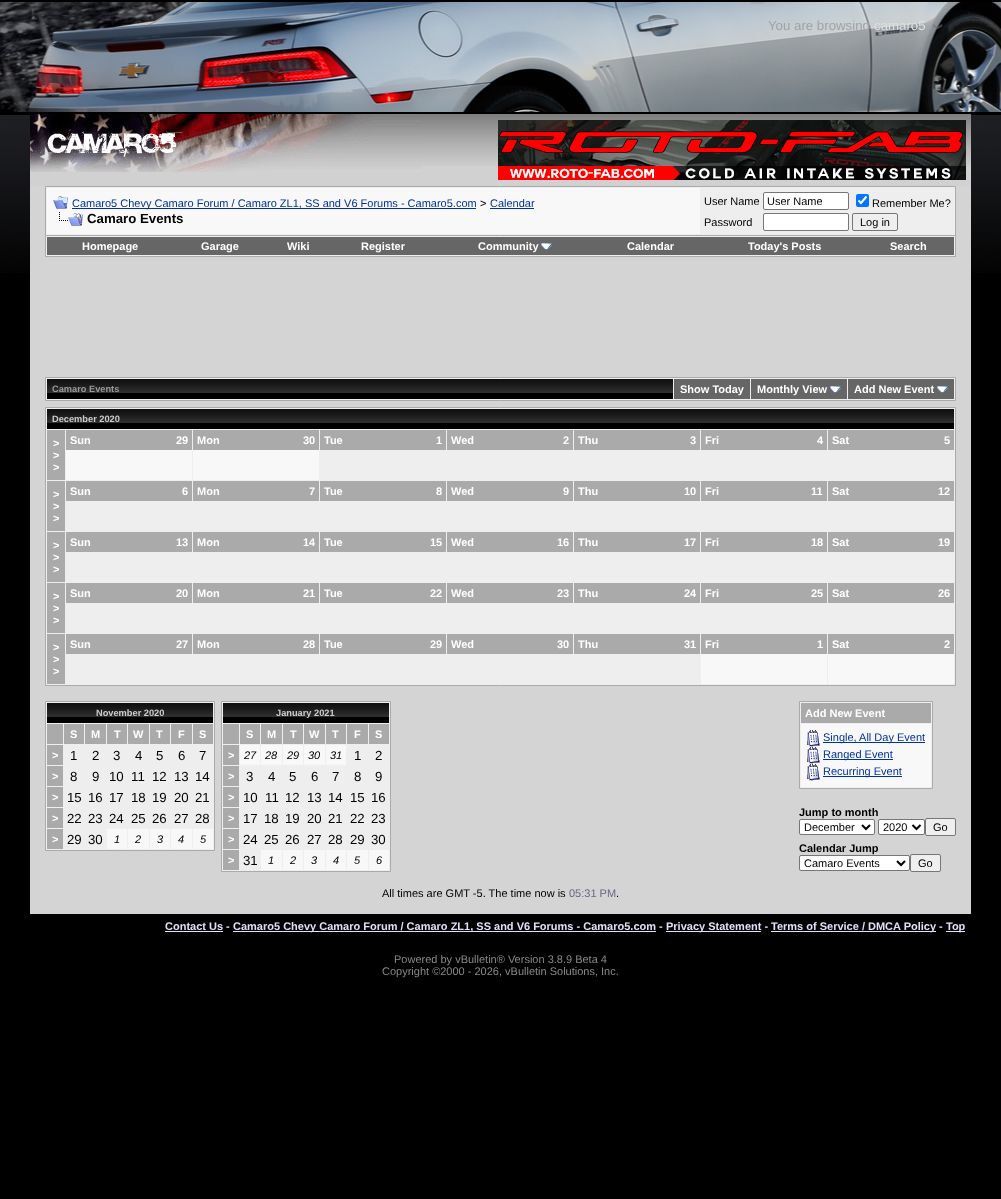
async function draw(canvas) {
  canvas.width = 1001;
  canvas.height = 1199;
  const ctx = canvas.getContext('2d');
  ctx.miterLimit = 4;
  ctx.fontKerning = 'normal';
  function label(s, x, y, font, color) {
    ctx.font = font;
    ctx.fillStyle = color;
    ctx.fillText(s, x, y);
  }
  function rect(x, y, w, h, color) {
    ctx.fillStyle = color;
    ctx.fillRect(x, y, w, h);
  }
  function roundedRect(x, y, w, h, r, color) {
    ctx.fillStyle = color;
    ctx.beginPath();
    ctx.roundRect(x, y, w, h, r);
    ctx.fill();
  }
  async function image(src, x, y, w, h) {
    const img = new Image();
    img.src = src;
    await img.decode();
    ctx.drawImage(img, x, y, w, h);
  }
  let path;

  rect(0, 0, 1001, 1199, '#000');
  await image('assets/img1.png', 0, 115, 1001, 158);
  await image('assets/img2.png', 0, 2, 1001, 110);
  label('You are browsing', 768, 30, '13.25px Liberation Sans', '#a0a3a5');
  label('camaro5', 874, 30, '13.25px Liberation Sans', '#dee0e1');
  await image('assets/img3.png', 932, 24, 11, 6);
  rect(30, 166, 941, 20, '#d1d1d1');
  await image('assets/img4.png', 421, 114, 550, 52);
  await image('assets/img5.png', 30, 114, 391, 58);
  await image('assets/img6.png', 498, 120, 468, 60);
  rect(30, 186, 941, 728, '#d4d4d4');
  ctx.fillStyle = '#eee';
  ctx.beginPath();
  ctx.rect(45.5, 186.5, 910, 49);
  ctx.fill();
  ctx.strokeStyle = '#aaa';
  ctx.stroke();
  rect(47, 188, 653, 46, '#f8f8f8');
  await image('assets/img7.png', 53, 196, 15, 13);
  rect(72, 208, 404, 1, '#039');
  label('Camaro5 Chevy Camaro Forum / Camaro ZL1, SS and V6 Forums - Camaro5.com', 72, 207, '11px Liberation Sans', '#039');
  label('>', 480, 207, '11px Liberation Sans', '#000');
  label('Calendar', 490, 207, '11px Liberation Sans', '#039');
  rect(490, 208, 44, 1, '#039');
  await image('assets/img8.png', 59, 212, 24, 14);
  label('Camaro Events', 87, 223, 'bold 13.25px Liberation Sans', '#000');
  label('User Name', 704, 205, '11px Liberation Sans', '#000');
  ctx.fillStyle = '#fff';
  ctx.beginPath();
  ctx.roundRect(763.5, 192.5, 85, 17, 1.5);
  ctx.fill();
  ctx.strokeStyle = '#767676';
  ctx.stroke();
  label('User Name', 767, 205, '11px Liberation Sans', '#000');
  roundedRect(856, 194, 13, 13, 2, '#0075ff');
  path = new Path2D('M858.5 200.5L861 203L866.5 196.5');
  ctx.strokeStyle = '#fff';
  ctx.lineWidth = 2.1;
  ctx.stroke(path);
  label('Remember Me?', 872, 207, '11px Liberation Sans', '#000');
  label('Password', 704, 226, '11px Liberation Sans', '#000');
  ctx.fillStyle = '#fff';
  ctx.beginPath();
  ctx.roundRect(763.5, 213.5, 85, 17, 1.5);
  ctx.fill();
  ctx.strokeStyle = '#767676';
  ctx.lineWidth = 1;
  ctx.stroke();
  ctx.beginPath();
  ctx.roundRect(852.5, 213.5, 45, 17, 1.5);
  ctx.stroke();
  label('Log in', 860, 226, '11px Liberation Sans', '#000');
  rect(46, 236, 909, 20, '#eee');
  rect(955, 236, 1, 21, '#aaa');
  rect(45, 256, 911, 1, '#aaa');
  rect(45, 236, 1, 21, '#aaa');
  rect(47, 237, 907, 18, '#666');
  label('Homepage', 82, 250, 'bold 11px Liberation Sans', '#fff');
  label('Garage', 201, 250, 'bold 11px Liberation Sans', '#fff');
  label('Wiki', 287, 250, 'bold 11px Liberation Sans', '#fff');
  label('Register', 361, 250, 'bold 11px Liberation Sans', '#fff');
  label('Community', 478, 250, 'bold 11px Liberation Sans', '#fff');
  await image('assets/img9.png', 541, 243, 11, 7);
  label('Calendar', 627, 250, 'bold 11px Liberation Sans', '#fff');
  label('Today\'s Posts', 748, 250, 'bold 11px Liberation Sans', '#fff');
  label('Search', 890, 250, 'bold 11px Liberation Sans', '#fff');
  ctx.fillStyle = '#eee';
  ctx.beginPath();
  ctx.rect(45.5, 377.5, 910, 23);
  ctx.fill();
  ctx.strokeStyle = '#aaa';
  ctx.stroke();
  rect(47, 393, 626, 6, '#000');
  await image('assets/img10.png', 47, 379, 626, 14);
  label('Camaro Events', 52, 392, 'bold 9.25px Liberation Sans', '#999');
  rect(674, 379, 76, 20, '#666');
  label('Show Today', 680, 393, 'bold 11px Liberation Sans', '#fff');
  rect(751, 379, 96, 20, '#666');
  label('Monthly View', 757, 393, 'bold 11px Liberation Sans', '#fff');
  await image('assets/img9.png', 830, 386, 11, 7);
  rect(848, 379, 106, 20, '#666');
  label('Add New Event', 854, 393, 'bold 11px Liberation Sans', '#fff');
  await image('assets/img9.png', 937, 386, 11, 7);
  ctx.fillStyle = '#eee';
  ctx.beginPath();
  ctx.rect(45.5, 407.5, 910, 278);
  ctx.fill();
  ctx.stroke();
  rect(47, 423, 907, 6, '#000');
  await image('assets/img11.png', 47, 409, 907, 14);
  label('December 2020', 52, 422, 'bold 9.25px Liberation Sans', '#ccc');
  rect(47, 430, 18, 50, '#aaa');
  label('>', 53, 447, 'bold 11px Liberation Sans', '#fff');
  label('>', 53, 459, 'bold 11px Liberation Sans', '#fff');
  label('>', 53, 471, 'bold 11px Liberation Sans', '#fff');
  rect(66, 450, 126, 30, '#f8f8f8');
  rect(66, 430, 126, 20, '#aaa');
  label('Sun', 70, 444, 'bold 11px Liberation Sans', '#fff');
  label('29', 176, 444, 'bold 11px Liberation Sans', '#fff');
  rect(193, 450, 126, 30, '#f8f8f8');
  rect(193, 430, 126, 20, '#aaa');
  label('Mon', 197, 444, 'bold 11px Liberation Sans', '#fff');
  label('30', 303, 444, 'bold 11px Liberation Sans', '#fff');
  rect(320, 430, 126, 20, '#aaa');
  label('Tue', 324, 444, 'bold 11px Liberation Sans', '#fff');
  label('1', 436, 444, 'bold 11px Liberation Sans', '#fff');
  rect(447, 430, 126, 20, '#aaa');
  label('Wed', 451, 444, 'bold 11px Liberation Sans', '#fff');
  label('2', 563, 444, 'bold 11px Liberation Sans', '#fff');
  rect(574, 430, 126, 20, '#aaa');
  label('Thu', 578, 444, 'bold 11px Liberation Sans', '#fff');
  label('3', 690, 444, 'bold 11px Liberation Sans', '#fff');
  rect(701, 430, 126, 20, '#aaa');
  label('Fri', 705, 444, 'bold 11px Liberation Sans', '#fff');
  label('4', 817, 444, 'bold 11px Liberation Sans', '#fff');
  rect(828, 430, 126, 20, '#aaa');
  label('Sat', 832, 444, 'bold 11px Liberation Sans', '#fff');
  label('5', 944, 444, 'bold 11px Liberation Sans', '#fff');
  rect(47, 481, 18, 50, '#aaa');
  label('>', 53, 498, 'bold 11px Liberation Sans', '#fff');
  label('>', 53, 510, 'bold 11px Liberation Sans', '#fff');
  label('>', 53, 522, 'bold 11px Liberation Sans', '#fff');
  rect(66, 481, 126, 20, '#aaa');
  label('Sun', 70, 495, 'bold 11px Liberation Sans', '#fff');
  label('6', 182, 495, 'bold 11px Liberation Sans', '#fff');
  rect(193, 481, 126, 20, '#aaa');
  label('Mon', 197, 495, 'bold 11px Liberation Sans', '#fff');
  label('7', 309, 495, 'bold 11px Liberation Sans', '#fff');
  rect(320, 481, 126, 20, '#aaa');
  label('Tue', 324, 495, 'bold 11px Liberation Sans', '#fff');
  label('8', 436, 495, 'bold 11px Liberation Sans', '#fff');
  rect(447, 481, 126, 20, '#aaa');
  label('Wed', 451, 495, 'bold 11px Liberation Sans', '#fff');
  label('9', 563, 495, 'bold 11px Liberation Sans', '#fff');
  rect(574, 481, 126, 20, '#aaa');
  label('Thu', 578, 495, 'bold 11px Liberation Sans', '#fff');
  label('10', 684, 495, 'bold 11px Liberation Sans', '#fff');
  rect(701, 481, 126, 20, '#aaa');
  label('Fri', 705, 495, 'bold 11px Liberation Sans', '#fff');
  label('11', 811, 495, 'bold 11px Liberation Sans', '#fff');
  rect(828, 481, 126, 20, '#aaa');
  label('Sat', 832, 495, 'bold 11px Liberation Sans', '#fff');
  label('12', 938, 495, 'bold 11px Liberation Sans', '#fff');
  rect(47, 532, 18, 50, '#aaa');
  label('>', 53, 549, 'bold 11px Liberation Sans', '#fff');
  label('>', 53, 561, 'bold 11px Liberation Sans', '#fff');
  label('>', 53, 573, 'bold 11px Liberation Sans', '#fff');
  rect(66, 532, 126, 20, '#aaa');
  label('Sun', 70, 546, 'bold 11px Liberation Sans', '#fff');
  label('13', 176, 546, 'bold 11px Liberation Sans', '#fff');
  rect(193, 532, 126, 20, '#aaa');
  label('Mon', 197, 546, 'bold 11px Liberation Sans', '#fff');
  label('14', 303, 546, 'bold 11px Liberation Sans', '#fff');
  rect(320, 532, 126, 20, '#aaa');
  label('Tue', 324, 546, 'bold 11px Liberation Sans', '#fff');
  label('15', 430, 546, 'bold 11px Liberation Sans', '#fff');
  rect(447, 532, 126, 20, '#aaa');
  label('Wed', 451, 546, 'bold 11px Liberation Sans', '#fff');
  label('16', 557, 546, 'bold 11px Liberation Sans', '#fff');
  rect(574, 532, 126, 20, '#aaa');
  label('Thu', 578, 546, 'bold 11px Liberation Sans', '#fff');
  label('17', 684, 546, 'bold 11px Liberation Sans', '#fff');
  rect(701, 532, 126, 20, '#aaa');
  label('Fri', 705, 546, 'bold 11px Liberation Sans', '#fff');
  label('18', 811, 546, 'bold 11px Liberation Sans', '#fff');
  rect(828, 532, 126, 20, '#aaa');
  label('Sat', 832, 546, 'bold 11px Liberation Sans', '#fff');
  label('19', 938, 546, 'bold 11px Liberation Sans', '#fff');
  rect(47, 583, 18, 50, '#aaa');
  label('>', 53, 600, 'bold 11px Liberation Sans', '#fff');
  label('>', 53, 612, 'bold 11px Liberation Sans', '#fff');
  label('>', 53, 624, 'bold 11px Liberation Sans', '#fff');
  rect(66, 583, 126, 20, '#aaa');
  label('Sun', 70, 597, 'bold 11px Liberation Sans', '#fff');
  label('20', 176, 597, 'bold 11px Liberation Sans', '#fff');
  rect(193, 583, 126, 20, '#aaa');
  label('Mon', 197, 597, 'bold 11px Liberation Sans', '#fff');
  label('21', 303, 597, 'bold 11px Liberation Sans', '#fff');
  rect(320, 583, 126, 20, '#aaa');
  label('Tue', 324, 597, 'bold 11px Liberation Sans', '#fff');
  label('22', 430, 597, 'bold 11px Liberation Sans', '#fff');
  rect(447, 583, 126, 20, '#aaa');
  label('Wed', 451, 597, 'bold 11px Liberation Sans', '#fff');
  label('23', 557, 597, 'bold 11px Liberation Sans', '#fff');
  rect(574, 583, 126, 20, '#aaa');
  label('Thu', 578, 597, 'bold 11px Liberation Sans', '#fff');
  label('24', 684, 597, 'bold 11px Liberation Sans', '#fff');
  rect(701, 583, 126, 20, '#aaa');
  label('Fri', 705, 597, 'bold 11px Liberation Sans', '#fff');
  label('25', 811, 597, 'bold 11px Liberation Sans', '#fff');
  rect(828, 583, 126, 20, '#aaa');
  label('Sat', 832, 597, 'bold 11px Liberation Sans', '#fff');
  label('26', 938, 597, 'bold 11px Liberation Sans', '#fff');
  rect(47, 634, 18, 50, '#aaa');
  label('>', 53, 651, 'bold 11px Liberation Sans', '#fff');
  label('>', 53, 663, 'bold 11px Liberation Sans', '#fff');
  label('>', 53, 675, 'bold 11px Liberation Sans', '#fff');
  rect(66, 634, 126, 20, '#aaa');
  label('Sun', 70, 648, 'bold 11px Liberation Sans', '#fff');
  label('27', 176, 648, 'bold 11px Liberation Sans', '#fff');
  rect(193, 634, 126, 20, '#aaa');
  label('Mon', 197, 648, 'bold 11px Liberation Sans', '#fff');
  label('28', 303, 648, 'bold 11px Liberation Sans', '#fff');
  rect(320, 634, 126, 20, '#aaa');
  label('Tue', 324, 648, 'bold 11px Liberation Sans', '#fff');
  label('29', 430, 648, 'bold 11px Liberation Sans', '#fff');
  rect(447, 634, 126, 20, '#aaa');
  label('Wed', 451, 648, 'bold 11px Liberation Sans', '#fff');
  label('30', 557, 648, 'bold 11px Liberation Sans', '#fff');
  rect(574, 634, 126, 20, '#aaa');
  label('Thu', 578, 648, 'bold 11px Liberation Sans', '#fff');
  label('31', 684, 648, 'bold 11px Liberation Sans', '#fff');
  rect(701, 654, 126, 30, '#f8f8f8');
  rect(701, 634, 126, 20, '#aaa');
  label('Fri', 705, 648, 'bold 11px Liberation Sans', '#fff');
  label('1', 817, 648, 'bold 11px Liberation Sans', '#fff');
  rect(828, 654, 126, 30, '#f8f8f8');
  rect(828, 634, 126, 20, '#aaa');
  label('Sat', 832, 648, 'bold 11px Liberation Sans', '#fff');
  label('2', 944, 648, 'bold 11px Liberation Sans', '#fff');
  ctx.fillStyle = '#eee';
  ctx.beginPath();
  ctx.rect(45.5, 701.5, 169, 149);
  ctx.fill();
  ctx.stroke();
  rect(47, 717, 166, 6, '#000');
  await image('assets/img12.png', 47, 703, 166, 14);
  label('November 2020', 96, 716, 'bold 9.25px Liberation Sans', '#ccc');
  rect(47, 724, 16, 20, '#aaa');
  rect(64, 724, 20, 20, '#aaa');
  label('S', 70, 738, 'bold 11px Liberation Sans', '#fff');
  rect(85, 724, 21, 20, '#aaa');
  label('M', 91, 738, 'bold 11px Liberation Sans', '#fff');
  rect(107, 724, 20, 20, '#aaa');
  label('T', 114, 738, 'bold 11px Liberation Sans', '#fff');
  rect(128, 724, 21, 20, '#aaa');
  label('W', 133, 738, 'bold 11px Liberation Sans', '#fff');
  rect(150, 724, 20, 20, '#aaa');
  label('T', 156, 738, 'bold 11px Liberation Sans', '#fff');
  rect(171, 724, 21, 20, '#aaa');
  label('F', 178, 738, 'bold 11px Liberation Sans', '#fff');
  rect(193, 724, 20, 20, '#aaa');
  label('S', 199, 738, 'bold 11px Liberation Sans', '#fff');
  rect(47, 745, 16, 20, '#aaa');
  label('>', 52, 759, 'bold 11px Liberation Sans', '#fff');
  label('1', 70, 760, '13.25px Liberation Sans', '#000');
  label('2', 92, 760, '13.25px Liberation Sans', '#000');
  label('3', 113, 760, '13.25px Liberation Sans', '#000');
  label('4', 135, 760, '13.25px Liberation Sans', '#000');
  label('5', 156, 760, '13.25px Liberation Sans', '#000');
  label('6', 178, 760, '13.25px Liberation Sans', '#000');
  label('7', 199, 760, '13.25px Liberation Sans', '#000');
  rect(47, 766, 16, 20, '#aaa');
  label('>', 52, 780, 'bold 11px Liberation Sans', '#fff');
  label('8', 70, 781, '13.25px Liberation Sans', '#000');
  label('9', 92, 781, '13.25px Liberation Sans', '#000');
  label('10', 109, 781, '13.25px Liberation Sans', '#000');
  label('11', 131, 781, '13.25px Liberation Sans', '#000');
  label('12', 152, 781, '13.25px Liberation Sans', '#000');
  label('13', 174, 781, '13.25px Liberation Sans', '#000');
  label('14', 195, 781, '13.25px Liberation Sans', '#000');
  rect(47, 787, 16, 20, '#aaa');
  label('>', 52, 801, 'bold 11px Liberation Sans', '#fff');
  label('15', 67, 802, '13.25px Liberation Sans', '#000');
  label('16', 88, 802, '13.25px Liberation Sans', '#000');
  label('17', 109, 802, '13.25px Liberation Sans', '#000');
  label('18', 131, 802, '13.25px Liberation Sans', '#000');
  label('19', 152, 802, '13.25px Liberation Sans', '#000');
  label('20', 174, 802, '13.25px Liberation Sans', '#000');
  label('21', 195, 802, '13.25px Liberation Sans', '#000');
  rect(47, 808, 16, 20, '#aaa');
  label('>', 52, 822, 'bold 11px Liberation Sans', '#fff');
  label('22', 67, 823, '13.25px Liberation Sans', '#000');
  label('23', 88, 823, '13.25px Liberation Sans', '#000');
  label('24', 109, 823, '13.25px Liberation Sans', '#000');
  label('25', 131, 823, '13.25px Liberation Sans', '#000');
  label('26', 152, 823, '13.25px Liberation Sans', '#000');
  label('27', 174, 823, '13.25px Liberation Sans', '#000');
  label('28', 195, 823, '13.25px Liberation Sans', '#000');
  rect(47, 829, 16, 20, '#aaa');
  label('>', 52, 843, 'bold 11px Liberation Sans', '#fff');
  label('29', 67, 844, '13.25px Liberation Sans', '#000');
  label('30', 88, 844, '13.25px Liberation Sans', '#000');
  rect(107, 829, 20, 20, '#f8f8f8');
  label('1', 114, 843, 'italic 11px Liberation Sans', '#000');
  rect(128, 829, 21, 20, '#f8f8f8');
  label('2', 135, 843, 'italic 11px Liberation Sans', '#000');
  rect(150, 829, 20, 20, '#f8f8f8');
  label('3', 157, 843, 'italic 11px Liberation Sans', '#000');
  rect(171, 829, 21, 20, '#f8f8f8');
  label('4', 178, 843, 'italic 11px Liberation Sans', '#000');
  rect(193, 829, 20, 20, '#f8f8f8');
  label('5', 200, 843, 'italic 11px Liberation Sans', '#000');
  ctx.fillStyle = '#eee';
  ctx.beginPath();
  ctx.rect(221.5, 701.5, 169, 170);
  ctx.fill();
  ctx.stroke();
  rect(223, 717, 166, 6, '#000');
  await image('assets/img12.png', 223, 703, 166, 14);
  label('January 2021', 276, 716, 'bold 9.25px Liberation Sans', '#ccc');
  rect(223, 724, 16, 20, '#aaa');
  rect(240, 724, 20, 20, '#aaa');
  label('S', 246, 738, 'bold 11px Liberation Sans', '#fff');
  rect(261, 724, 21, 20, '#aaa');
  label('M', 267, 738, 'bold 11px Liberation Sans', '#fff');
  rect(283, 724, 20, 20, '#aaa');
  label('T', 290, 738, 'bold 11px Liberation Sans', '#fff');
  rect(304, 724, 21, 20, '#aaa');
  label('W', 309, 738, 'bold 11px Liberation Sans', '#fff');
  rect(326, 724, 20, 20, '#aaa');
  label('T', 332, 738, 'bold 11px Liberation Sans', '#fff');
  rect(347, 724, 21, 20, '#aaa');
  label('F', 354, 738, 'bold 11px Liberation Sans', '#fff');
  rect(369, 724, 20, 20, '#aaa');
  label('S', 375, 738, 'bold 11px Liberation Sans', '#fff');
  rect(223, 745, 16, 20, '#aaa');
  label('>', 228, 759, 'bold 11px Liberation Sans', '#fff');
  rect(240, 745, 20, 20, '#f8f8f8');
  label('27', 244, 759, 'italic 11px Liberation Sans', '#000');
  rect(261, 745, 21, 20, '#f8f8f8');
  label('28', 265, 759, 'italic 11px Liberation Sans', '#000');
  rect(283, 745, 20, 20, '#f8f8f8');
  label('29', 287, 759, 'italic 11px Liberation Sans', '#000');
  rect(304, 745, 21, 20, '#f8f8f8');
  label('30', 308, 759, 'italic 11px Liberation Sans', '#000');
  rect(326, 745, 20, 20, '#f8f8f8');
  label('31', 330, 759, 'italic 11px Liberation Sans', '#000');
  label('1', 354, 760, '13.25px Liberation Sans', '#000');
  label('2', 375, 760, '13.25px Liberation Sans', '#000');
  rect(223, 766, 16, 20, '#aaa');
  label('>', 228, 780, 'bold 11px Liberation Sans', '#fff');
  label('3', 246, 781, '13.25px Liberation Sans', '#000');
  label('4', 268, 781, '13.25px Liberation Sans', '#000');
  label('5', 289, 781, '13.25px Liberation Sans', '#000');
  label('6', 311, 781, '13.25px Liberation Sans', '#000');
  label('7', 332, 781, '13.25px Liberation Sans', '#000');
  label('8', 354, 781, '13.25px Liberation Sans', '#000');
  label('9', 375, 781, '13.25px Liberation Sans', '#000');
  rect(223, 787, 16, 20, '#aaa');
  label('>', 228, 801, 'bold 11px Liberation Sans', '#fff');
  label('10', 243, 802, '13.25px Liberation Sans', '#000');
  label('11', 265, 802, '13.25px Liberation Sans', '#000');
  label('12', 285, 802, '13.25px Liberation Sans', '#000');
  label('13', 307, 802, '13.25px Liberation Sans', '#000');
  label('14', 328, 802, '13.25px Liberation Sans', '#000');
  label('15', 350, 802, '13.25px Liberation Sans', '#000');
  label('16', 371, 802, '13.25px Liberation Sans', '#000');
  rect(223, 808, 16, 20, '#aaa');
  label('>', 228, 822, 'bold 11px Liberation Sans', '#fff');
  label('17', 243, 823, '13.25px Liberation Sans', '#000');
  label('18', 264, 823, '13.25px Liberation Sans', '#000');
  label('19', 285, 823, '13.25px Liberation Sans', '#000');
  label('20', 307, 823, '13.25px Liberation Sans', '#000');
  label('21', 328, 823, '13.25px Liberation Sans', '#000');
  label('22', 350, 823, '13.25px Liberation Sans', '#000');
  label('23', 371, 823, '13.25px Liberation Sans', '#000');
  rect(223, 829, 16, 20, '#aaa');
  label('>', 228, 843, 'bold 11px Liberation Sans', '#fff');
  label('24', 243, 844, '13.25px Liberation Sans', '#000');
  label('25', 264, 844, '13.25px Liberation Sans', '#000');
  label('26', 285, 844, '13.25px Liberation Sans', '#000');
  label('27', 307, 844, '13.25px Liberation Sans', '#000');
  label('28', 328, 844, '13.25px Liberation Sans', '#000');
  label('29', 350, 844, '13.25px Liberation Sans', '#000');
  label('30', 371, 844, '13.25px Liberation Sans', '#000');
  rect(223, 850, 16, 20, '#aaa');
  label('>', 228, 864, 'bold 11px Liberation Sans', '#fff');
  label('31', 243, 865, '13.25px Liberation Sans', '#000');
  rect(261, 850, 21, 20, '#f8f8f8');
  label('1', 268, 864, 'italic 11px Liberation Sans', '#000');
  rect(283, 850, 20, 20, '#f8f8f8');
  label('2', 290, 864, 'italic 11px Liberation Sans', '#000');
  rect(304, 850, 21, 20, '#f8f8f8');
  label('3', 311, 864, 'italic 11px Liberation Sans', '#000');
  rect(326, 850, 20, 20, '#f8f8f8');
  label('4', 333, 864, 'italic 11px Liberation Sans', '#000');
  rect(347, 850, 21, 20, '#f8f8f8');
  label('5', 354, 864, 'italic 11px Liberation Sans', '#000');
  rect(369, 850, 20, 20, '#f8f8f8');
  label('6', 376, 864, 'italic 11px Liberation Sans', '#000');
  ctx.fillStyle = '#eee';
  ctx.beginPath();
  ctx.rect(799.5, 701.5, 133, 87);
  ctx.fill();
  ctx.stroke();
  rect(801, 703, 130, 20, '#aaa');
  label('Add New Event', 805, 717, 'bold 11px Liberation Sans', '#fff');
  rect(801, 724, 130, 63, '#f8f8f8');
  await image('assets/img13.png', 807, 730, 13, 17);
  rect(823, 742, 102, 1, '#039');
  label('Single, All Day Event', 823, 741, '11px Liberation Sans', '#039');
  await image('assets/img13.png', 807, 747, 13, 17);
  rect(823, 759, 70, 1, '#039');
  label('Ranged Event', 823, 758, '11px Liberation Sans', '#039');
  await image('assets/img13.png', 807, 764, 13, 17);
  rect(823, 776, 79, 1, '#039');
  label('Recurring Event', 823, 775, '11px Liberation Sans', '#039');
  label('Jump to month', 799, 816, 'bold 11px Liberation Sans', '#000');
  ctx.fillStyle = '#fff';
  ctx.beginPath();
  ctx.roundRect(799.5, 819.5, 75, 15, 1.5);
  ctx.fill();
  ctx.strokeStyle = '#767676';
  ctx.stroke();
  path = new Path2D('M862 825L866 829L870 825');
  ctx.strokeStyle = '#000';
  ctx.lineWidth = 2;
  ctx.stroke(path);
  label('December', 804, 831, '11px Liberation Sans', '#000');
  ctx.fillStyle = '#fff';
  ctx.beginPath();
  ctx.roundRect(878.5, 819.5, 46, 15, 1.5);
  ctx.fill();
  ctx.strokeStyle = '#767676';
  ctx.lineWidth = 1;
  ctx.stroke();
  path = new Path2D('M912.5 825L916.5 829L920.5 825');
  ctx.strokeStyle = '#000';
  ctx.lineWidth = 2;
  ctx.stroke(path);
  label('2020', 883, 831, '11px Liberation Sans', '#000');
  ctx.fillStyle = '#efefef';
  ctx.beginPath();
  ctx.roundRect(925.5, 818.5, 30, 17, 1.5);
  ctx.fill();
  ctx.strokeStyle = '#767676';
  ctx.lineWidth = 1;
  ctx.stroke();
  label('Go', 933, 831, '11px Liberation Sans', '#000');
  label('Calendar Jump', 799, 852, 'bold 11px Liberation Sans', '#000');
  ctx.fillStyle = '#fff';
  ctx.beginPath();
  ctx.roundRect(799.5, 855.5, 110, 15, 1.5);
  ctx.fill();
  ctx.stroke();
  path = new Path2D('M897 861L901 865L905 861');
  ctx.strokeStyle = '#000';
  ctx.lineWidth = 2;
  ctx.stroke(path);
  label('Camaro Events', 804, 867, '11px Liberation Sans', '#000');
  ctx.fillStyle = '#efefef';
  ctx.beginPath();
  ctx.roundRect(910.5, 854.5, 30, 17, 1.5);
  ctx.fill();
  ctx.strokeStyle = '#767676';
  ctx.lineWidth = 1;
  ctx.stroke();
  label('Go', 918, 867, '11px Liberation Sans', '#000');
  label('All times are GMT -5. The time now is', 382, 897, '11px Liberation Sans', '#000');
  label('05:31 PM', 569, 897, '11px Liberation Sans', '#666686');
  label('.', 616, 897, '11px Liberation Sans', '#000');
  label('Contact Us -', 165, 930, 'bold 11px Liberation Sans', '#e0e0f6');
  rect(165, 931, 58, 1, '#e0e0f6');
  rect(233, 931, 423, 1, '#e0e0f6');
  label('Camaro5 Chevy Camaro Forum / Camaro ZL1, SS and V6 Forums - Camaro5.com -', 233, 930, 'bold 11px Liberation Sans', '#e0e0f6');
  rect(666, 931, 95, 1, '#e0e0f6');
  label('Privacy Statement -', 666, 930, 'bold 11px Liberation Sans', '#e0e0f6');
  rect(771, 931, 165, 1, '#e0e0f6');
  label('Terms of Service / DMCA Policy -', 771, 930, 'bold 11px Liberation Sans', '#e0e0f6');
  rect(946, 931, 19, 1, '#e0e0f6');
  label('Top', 946, 930, 'bold 11px Liberation Sans', '#e0e0f6');
  label('Powered by vBulletin® Version 3.8.9 Beta 4', 394, 963, '11px Liberation Sans', '#888');
  label('Copyright ©2000 - 2026, vBulletin Solutions, Inc.', 382, 975, '11px Liberation Sans', '#888');
}

draw(document.querySelector('canvas'));
